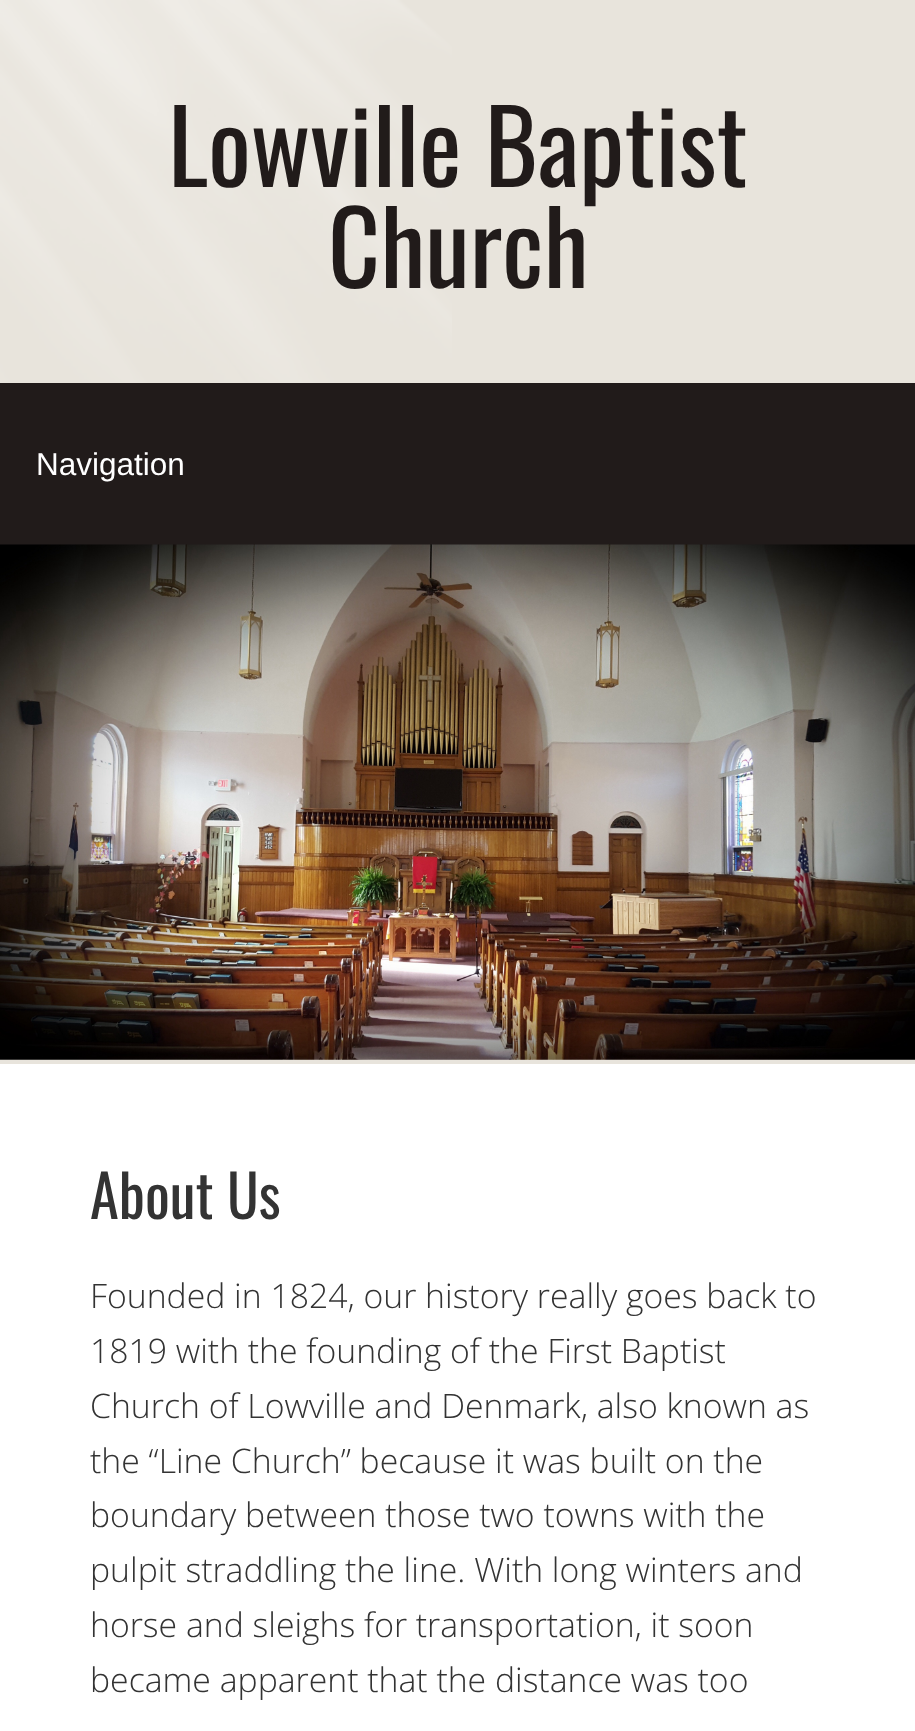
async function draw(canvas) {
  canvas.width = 915;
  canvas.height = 1731;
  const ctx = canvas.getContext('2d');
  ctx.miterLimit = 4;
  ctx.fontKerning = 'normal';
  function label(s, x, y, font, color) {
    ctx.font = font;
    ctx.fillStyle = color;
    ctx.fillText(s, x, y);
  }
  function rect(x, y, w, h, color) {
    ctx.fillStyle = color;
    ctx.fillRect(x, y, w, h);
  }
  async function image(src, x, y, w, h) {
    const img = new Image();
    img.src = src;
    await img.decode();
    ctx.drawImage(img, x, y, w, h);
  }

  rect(0, 0, 915, 1731, '#e8e4dc');
  await image('assets/img1.png', 0, 0, 452, 383);
  label('Lowville Baptist', 168, 187, '101.25px Oswald', '#211b1a');
  label('Church', 328, 288, '101.25px Oswald', '#211b1a');
  rect(0, 383, 915, 162, '#211b1a');
  label('Navigation', 36, 475, '31.5px Liberation Sans', '#fff');
  await image('assets/img2.png', 0, 544, 915, 516);
  rect(0, 1064, 915, 667, '#fff');
  label('About Us', 90, 1219, '58.5px Oswald', '#333');
  label('Founded in 1824, our history really goes back to', 90, 1308, '300 33.75px Open Sans', '#333');
  label('1819 with the founding of the First Baptist', 90, 1363, '300 33.75px Open Sans', '#333');
  label('Church of Lowville and Denmark, also known as', 90, 1418, '300 33.75px Open Sans', '#333');
  label('the “Line Church” because it was built on the', 90, 1473, '300 33.75px Open Sans', '#333');
  label('boundary between those two towns with the', 90, 1527, '300 33.75px Open Sans', '#333');
  label('pulpit straddling the line. With long winters and', 90, 1582, '300 33.75px Open Sans', '#333');
  label('horse and sleighs for transportation, it soon', 90, 1637, '300 33.75px Open Sans', '#333');
  label('became apparent that the distance was too', 90, 1692, '300 33.75px Open Sans', '#333');
}

draw(document.querySelector('canvas'));
